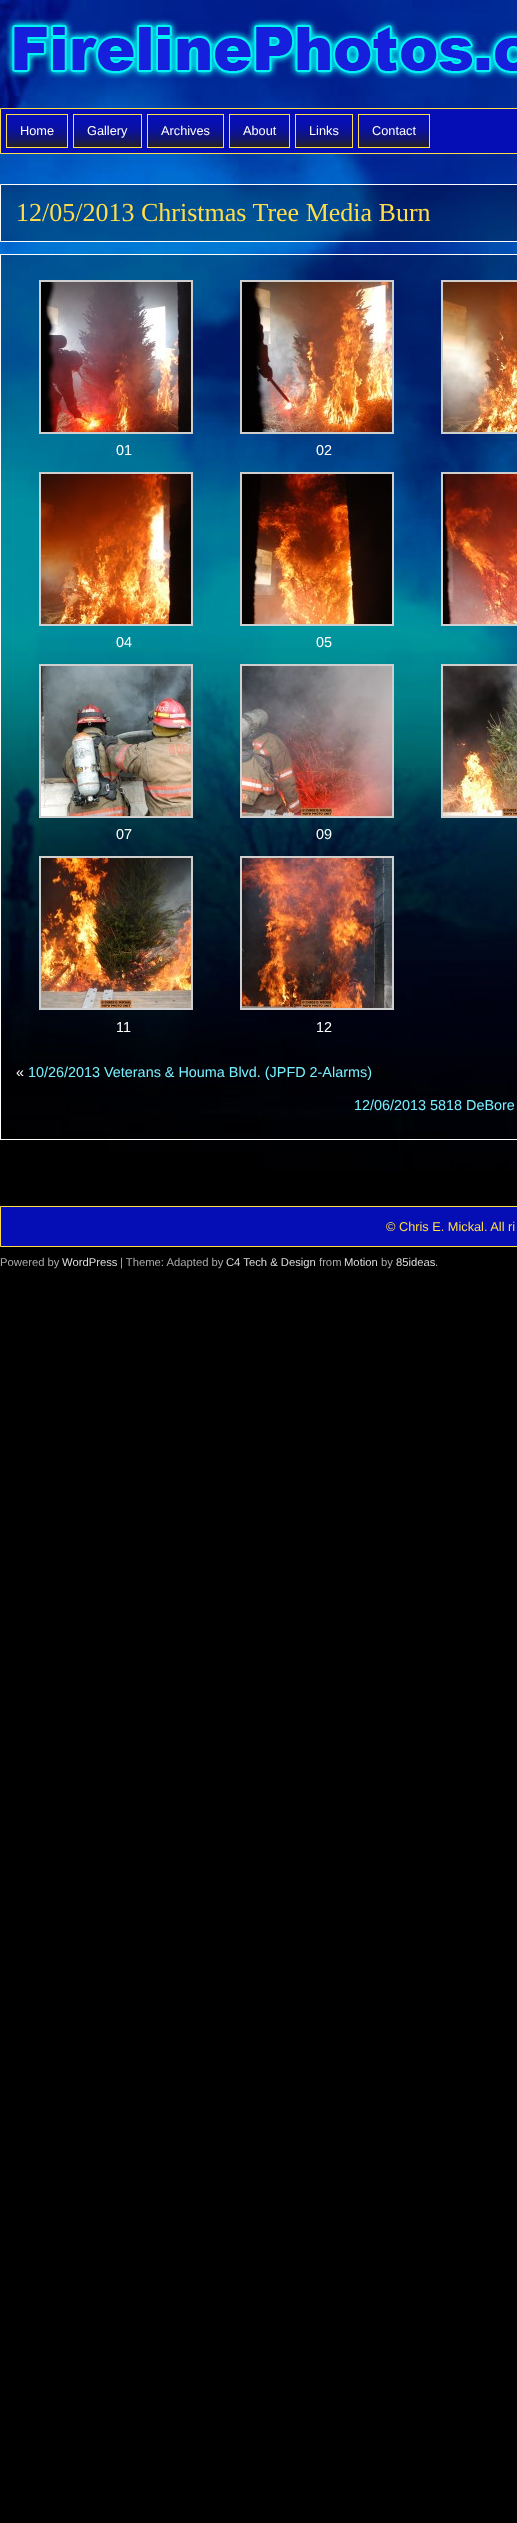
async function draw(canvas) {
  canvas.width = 517;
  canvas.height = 2523;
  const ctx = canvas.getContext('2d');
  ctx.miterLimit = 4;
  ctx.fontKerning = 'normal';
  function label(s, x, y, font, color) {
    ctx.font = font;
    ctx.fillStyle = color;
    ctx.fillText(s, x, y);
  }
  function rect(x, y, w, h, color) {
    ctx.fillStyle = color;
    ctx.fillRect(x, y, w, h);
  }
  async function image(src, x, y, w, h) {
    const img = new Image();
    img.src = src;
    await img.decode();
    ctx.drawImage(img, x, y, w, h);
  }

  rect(0, 0, 517, 2523, '#000');
  await image('assets/img1.png', 0, 0, 517, 1171);
  await image('assets/img2.png', 6, 18, 511, 61);
  ctx.fillStyle = '#050eb5';
  ctx.beginPath();
  ctx.rect(0.5, 108.5, 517, 45);
  ctx.fill();
  ctx.strokeStyle = '#ffde4a';
  ctx.stroke();
  await image('assets/img3.png', 7, 115, 60, 32);
  ctx.strokeRect(6.5, 114.5, 61, 33);
  label('Home', 20, 135, '12.75px Liberation Sans', '#fff');
  await image('assets/img4.png', 74, 115, 67, 32);
  ctx.strokeRect(73.5, 114.5, 68, 33);
  label('Gallery', 87, 135, '12.75px Liberation Sans', '#fff');
  await image('assets/img5.png', 148, 115, 75, 32);
  ctx.strokeRect(147.5, 114.5, 76, 33);
  label('Archives', 161, 135, '12.75px Liberation Sans', '#fff');
  await image('assets/img6.png', 230, 115, 59, 32);
  ctx.strokeRect(229.5, 114.5, 60, 33);
  label('About', 243, 135, '12.75px Liberation Sans', '#fff');
  await image('assets/img7.png', 296, 115, 56, 32);
  ctx.strokeRect(295.5, 114.5, 57, 33);
  label('Links', 309, 135, '12.75px Liberation Sans', '#fff');
  await image('assets/img8.png', 359, 115, 70, 32);
  ctx.strokeRect(358.5, 114.5, 71, 33);
  label('Contact', 372, 135, '12.75px Liberation Sans', '#fff');
  ctx.fillStyle = '#0000004d';
  ctx.beginPath();
  ctx.rect(0.5, 184.5, 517, 57);
  ctx.fill();
  ctx.strokeStyle = '#fff';
  ctx.stroke();
  label('12/05/2013 Christmas Tree Media Burn', 16, 221, '26px Liberation Serif', '#ffde4a');
  rect(1, 255, 516, 842, '#0000004d');
  ctx.strokeRect(0.5, 254.5, 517, 885);
  ctx.strokeStyle = '#cfcfcf';
  ctx.lineWidth = 2;
  ctx.strokeRect(442, 281, 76, 152);
  await image('assets/img9.png', 443, 282, 74, 150);
  ctx.strokeRect(40, 281, 152, 152);
  await image('assets/img10.png', 41, 282, 150, 150);
  label('01', 116, 455, '14.4px Liberation Sans', '#fff');
  ctx.strokeRect(241, 281, 152, 152);
  await image('assets/img11.png', 242, 282, 150, 150);
  label('02', 316, 455, '14.4px Liberation Sans', '#fff');
  ctx.strokeRect(442, 473, 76, 152);
  await image('assets/img12.png', 443, 474, 74, 150);
  ctx.strokeRect(40, 473, 152, 152);
  await image('assets/img13.png', 41, 474, 150, 150);
  label('04', 116, 647, '14.4px Liberation Sans', '#fff');
  ctx.strokeRect(241, 473, 152, 152);
  await image('assets/img14.png', 242, 474, 150, 150);
  label('05', 316, 647, '14.4px Liberation Sans', '#fff');
  ctx.strokeRect(442, 665, 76, 152);
  await image('assets/img15.png', 443, 666, 74, 150);
  ctx.strokeRect(40, 665, 152, 152);
  await image('assets/img16.png', 41, 666, 150, 150);
  label('07', 116, 839, '14.4px Liberation Sans', '#fff');
  ctx.strokeRect(241, 665, 152, 152);
  await image('assets/img17.png', 242, 666, 150, 150);
  label('09', 316, 839, '14.4px Liberation Sans', '#fff');
  ctx.strokeRect(40, 857, 152, 152);
  await image('assets/img18.png', 41, 858, 150, 150);
  label('11', 116, 1032, '14.4px Liberation Sans', '#fff');
  ctx.strokeRect(241, 857, 152, 152);
  await image('assets/img19.png', 242, 858, 150, 150);
  label('12', 316, 1032, '14.4px Liberation Sans', '#fff');
  label('«', 16, 1077, '14.4px Liberation Sans', '#fff');
  label('10/26/2013 Veterans & Houma Blvd. (JPFD 2-Alarms)', 28, 1077, '14.4px Liberation Sans', '#78efff');
  label('12/06/2013 5818 DeBore', 354, 1110, '14.4px Liberation Sans', '#78efff');
  ctx.fillStyle = '#050eb5';
  ctx.beginPath();
  ctx.rect(0.5, 1206.5, 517, 40);
  ctx.fill();
  ctx.strokeStyle = '#ffde4a';
  ctx.lineWidth = 1;
  ctx.stroke();
  label('© Chris E. Mickal. All ri', 386, 1231, '12.75px Liberation Sans', '#ffde4a');
  label('Powered by', 0, 1266, '11.25px Liberation Sans', '#aaa');
  label('WordPress', 62, 1266, '11.25px Liberation Sans', '#ddd');
  label('| Theme: Adapted by', 120, 1266, '11.25px Liberation Sans', '#aaa');
  label('C4 Tech & Design', 226, 1266, '11.25px Liberation Sans', '#ddd');
  label('from', 319, 1266, '11.25px Liberation Sans', '#aaa');
  label('Motion', 344, 1266, '11.25px Liberation Sans', '#ddd');
  label('by', 381, 1266, '11.25px Liberation Sans', '#aaa');
  label('85ideas', 396, 1266, '11.25px Liberation Sans', '#ddd');
  label('.', 435, 1266, '11.25px Liberation Sans', '#aaa');
}

draw(document.querySelector('canvas'));
